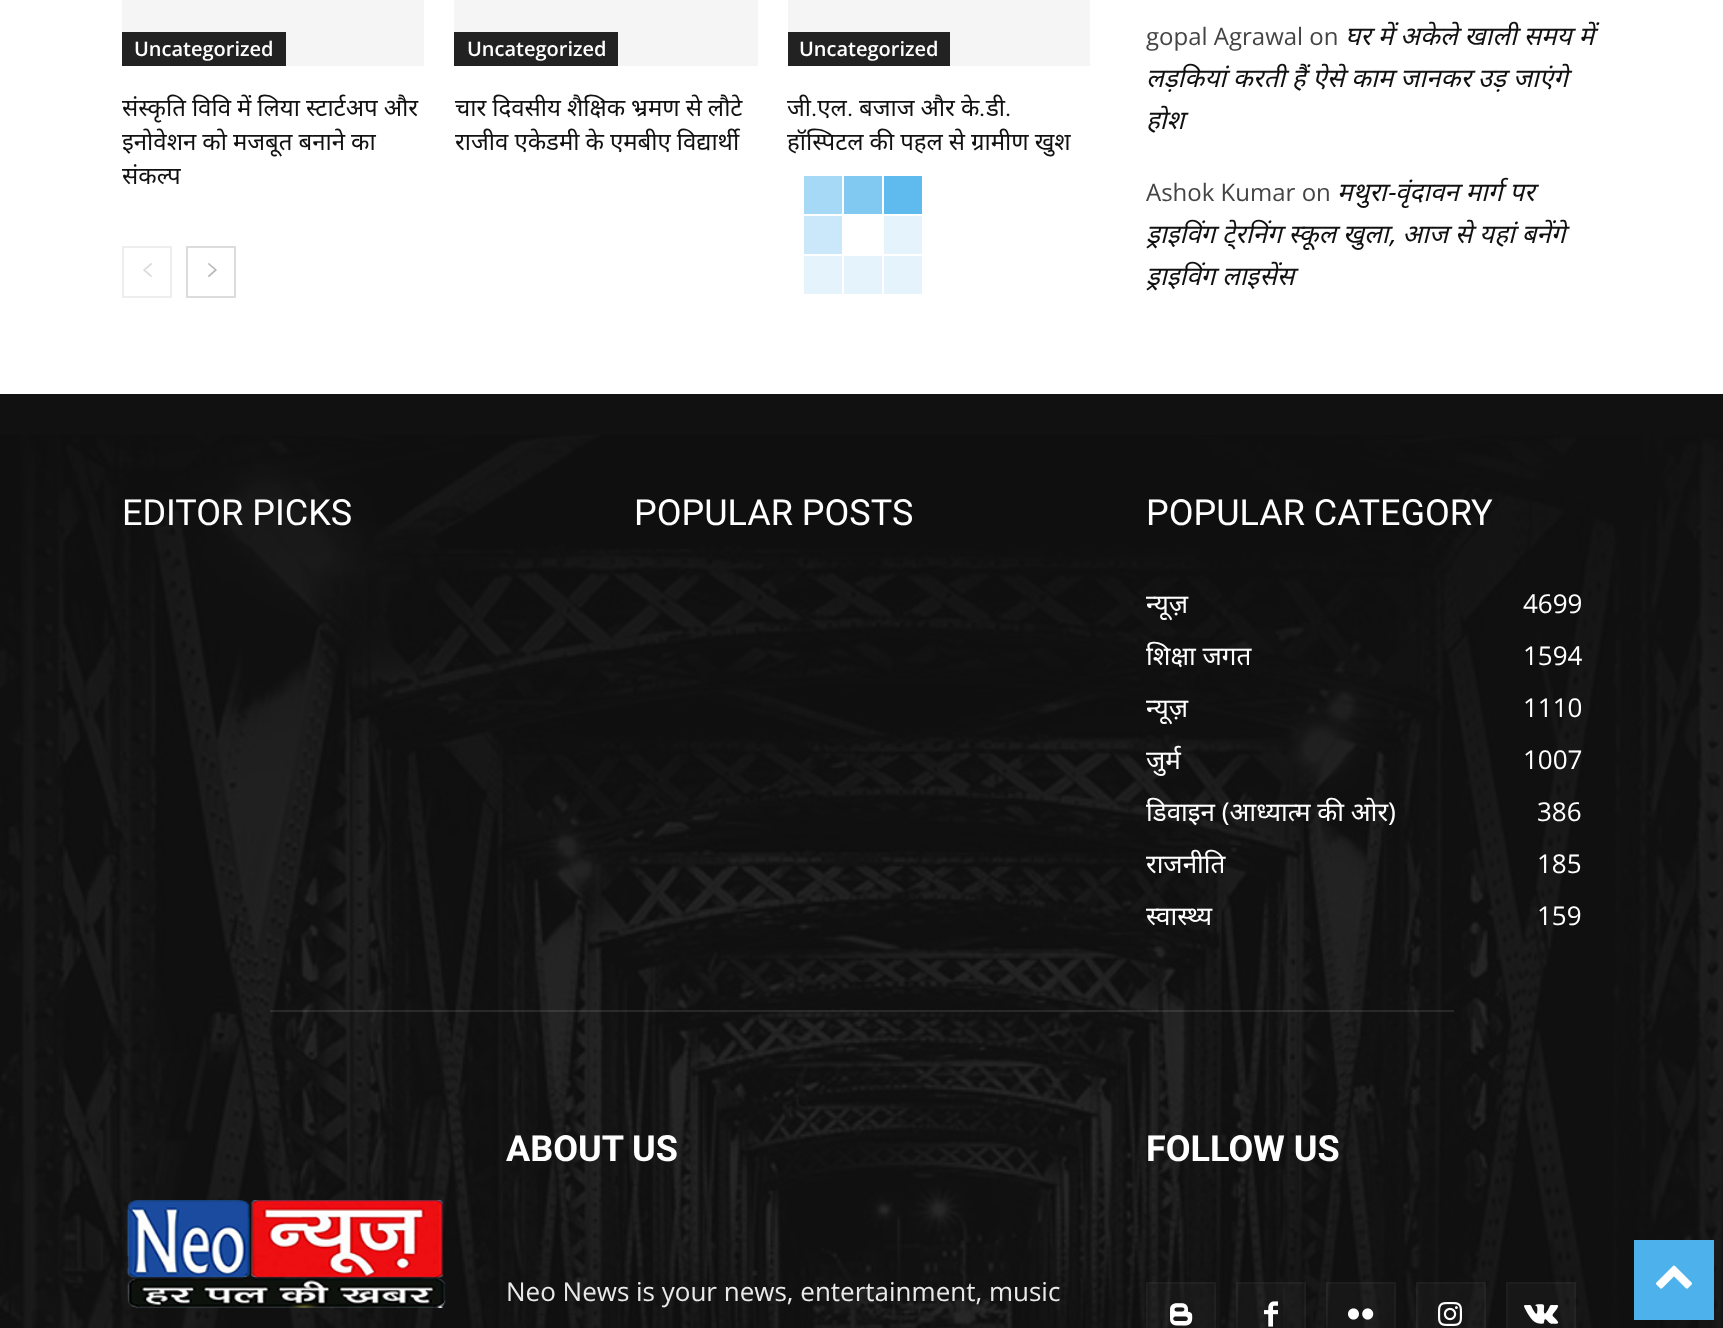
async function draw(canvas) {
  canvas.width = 1723;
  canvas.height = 1328;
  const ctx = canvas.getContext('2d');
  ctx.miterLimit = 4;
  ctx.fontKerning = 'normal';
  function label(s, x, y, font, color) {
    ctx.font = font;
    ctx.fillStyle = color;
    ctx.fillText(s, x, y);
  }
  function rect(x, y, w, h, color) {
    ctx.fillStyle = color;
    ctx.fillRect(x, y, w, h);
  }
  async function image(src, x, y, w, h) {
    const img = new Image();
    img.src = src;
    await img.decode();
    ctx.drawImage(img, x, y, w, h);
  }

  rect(0, 0, 1723, 1328, '#fff');
  rect(122, 0, 302, 66, '#f5f5f5');
  rect(122, 32, 164, 34, '#222');
  label('Uncategorized', 134, 56, '600 20px Open Sans', '#fff');
  ctx.wordSpacing = '-0.25px';
  label('संस्कृति विवि में लिया स्टार्टअप और', 122, 116, '24px Noto Sans', '#111');
  label('इनोवेशन को मजबूत बनाने का', 122, 150, '24px Noto Sans', '#111');
  ctx.wordSpacing = '0px';
  label('संकल्प', 122, 184, '24px Noto Sans', '#111');
  rect(454, 0, 304, 66, '#f5f5f5');
  rect(454, 32, 164, 34, '#222');
  label('Uncategorized', 467, 56, '600 20px Open Sans', '#fff');
  ctx.wordSpacing = '-0.25px';
  label('चार दिवसीय शैक्षिक भ्रमण से लौटे', 455, 116, '24px Noto Sans', '#111');
  label('राजीव एकेडमी के एमबीए विद्यार्थी', 455, 150, '24px Noto Sans', '#111');
  rect(788, 0, 302, 66, '#f5f5f5');
  rect(788, 32, 162, 34, '#222');
  ctx.wordSpacing = '0px';
  label('Uncategorized', 799, 56, '600 20px Open Sans', '#fff');
  label('जी एल', 787, 116, '24px Noto Sans', '#111');
  ctx.wordSpacing = '-0.25px';
  label('बजाज और के', 859, 116, '24px Noto Sans', '#111');
  ctx.wordSpacing = '0px';
  label('.', 979, 116, '24px Roboto', '#111');
  label('डी', 986, 116, '24px Noto Sans', '#111');
  label('.', 811, 116, '24px Roboto', '#111');
  label('.', 847, 116, '24px Roboto', '#111');
  label('.', 1005, 116, '24px Roboto', '#111');
  ctx.wordSpacing = '-0.25px';
  label('हॉस्पिटल की पहल से ग्रामीण खुश', 787, 150, '24px Noto Sans', '#111');
  ctx.strokeStyle = '#eee';
  ctx.lineWidth = 2;
  ctx.strokeRect(123, 247, 48, 50);
  await image('assets/img1.png', 143, 263, 9, 14);
  ctx.strokeStyle = '#dcdcdc';
  ctx.strokeRect(187, 247, 48, 50);
  await image('assets/img2.png', 208, 263, 9, 14);
  ctx.wordSpacing = '0px';
  label('gopal Agrawal on', 1146, 45, '24px Open Sans', '#444');
  label('घर में अकेले खाली समय में', 1345, 45, 'italic 26px Noto Sans', '#111');
  label('लड़कियां करती हैं ऐसे काम जानकर उड़ जाएंगे', 1146, 87, 'italic 26px Noto Sans', '#111');
  label('होश', 1146, 129, 'italic 26px Noto Sans', '#111');
  label('Ashok Kumar on', 1146, 201, '24px Open Sans', '#444');
  label('मथुरा-वृंदावन मार्ग पर', 1337, 201, 'italic 26px Noto Sans', '#111');
  label('ड्राइविंग टे्रनिंग स्कूल खुला, आज से यहां बनेंगे', 1146, 243, 'italic 26px Noto Sans', '#111');
  label('ड्राइविंग लाइसेंस', 1146, 285, 'italic 26px Noto Sans', '#111');
  rect(804, 176, 38, 38, '#a6d9f6');
  rect(844, 176, 38, 38, '#82c9f2');
  rect(884, 176, 38, 38, '#5fbaee');
  rect(804, 216, 38, 38, '#cae8f9');
  rect(884, 216, 38, 38, '#e4f3fc');
  rect(804, 256, 38, 38, '#e4f3fc');
  rect(844, 256, 38, 38, '#e4f3fc');
  rect(884, 256, 38, 38, '#e4f3fc');
  rect(0, 394, 1723, 934, '#111');
  await image('assets/img3.png', 0, 435, 1723, 893);
  label('EDITOR PICKS', 122, 525, '36px Roboto', '#fff');
  label('POPULAR POSTS', 634, 525, '36px Roboto', '#fff');
  label('POPULAR CATEGORY', 1146, 525, '36px Roboto', '#fff');
  ctx.save();
  ctx.beginPath();
  ctx.rect(1146, 482, 456, 488);
  ctx.clip();
  label('न्यूज़', 1146, 613, '26px Noto Sans', '#fff');
  ctx.restore();
  label('4699', 1523, 613, '26px Open Sans', '#fff');
  label('शिक्षा जगत', 1146, 665, '26px Noto Sans', '#fff');
  label('1594', 1523, 665, '26px Open Sans', '#fff');
  ctx.save();
  ctx.beginPath();
  ctx.rect(1146, 482, 456, 488);
  ctx.clip();
  label('न्यूज़', 1146, 717, '26px Noto Sans', '#fff');
  ctx.restore();
  label('1110', 1523, 717, '26px Open Sans', '#fff');
  ctx.save();
  ctx.beginPath();
  ctx.rect(1146, 482, 456, 488);
  ctx.clip();
  label('जुर्म', 1146, 769, '26px Noto Sans', '#fff');
  ctx.restore();
  label('1007', 1523, 769, '26px Open Sans', '#fff');
  label('डिवाइन (आध्यात्म की ओर)', 1146, 821, '26px Noto Sans', '#fff');
  label('386', 1537, 821, '26px Open Sans', '#fff');
  label('राजनीति', 1146, 873, '26px Noto Sans', '#fff');
  label('185', 1537, 873, '26px Open Sans', '#fff');
  label('स्वास्थ्य', 1146, 925, '26px Noto Sans', '#fff');
  label('159', 1537, 925, '26px Open Sans', '#fff');
  rect(270, 1010, 1184, 2, '#ffffff1a');
  label('ABOUT US', 506, 1161, 'bold 36px Roboto', '#fff');
  label('Neo News is your news, entertainment, music', 506, 1301, '26px Open Sans', '#eaeaea');
  label('FOLLOW US', 1146, 1161, 'bold 36px Roboto', '#fff');
  rect(1146, 1282, 70, 46, '#ffffff08');
  ctx.strokeStyle = '#ffffff08';
  ctx.strokeRect(1147, 1283, 68, 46);
  await image('assets/img4.png', 1170, 1303, 23, 23);
  rect(1236, 1282, 70, 46, '#ffffff08');
  ctx.strokeRect(1237, 1283, 68, 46);
  await image('assets/img5.png', 1264, 1301, 14, 26);
  rect(1326, 1282, 70, 46, '#ffffff08');
  ctx.strokeRect(1327, 1283, 68, 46);
  await image('assets/img6.png', 1348, 1308, 26, 12);
  rect(1416, 1282, 70, 46, '#ffffff08');
  ctx.strokeRect(1417, 1283, 68, 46);
  await image('assets/img7.png', 1438, 1302, 24, 24);
  rect(1506, 1282, 70, 46, '#ffffff08');
  ctx.strokeRect(1507, 1283, 68, 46);
  await image('assets/img8.png', 1524, 1304, 35, 20);
  await image('assets/img9.png', 126, 1200, 320, 108);
  rect(1634, 1240, 80, 80, '#4db2ec');
  await image('assets/img10.png', 1656, 1265, 36, 24);
}

draw(document.querySelector('canvas'));
